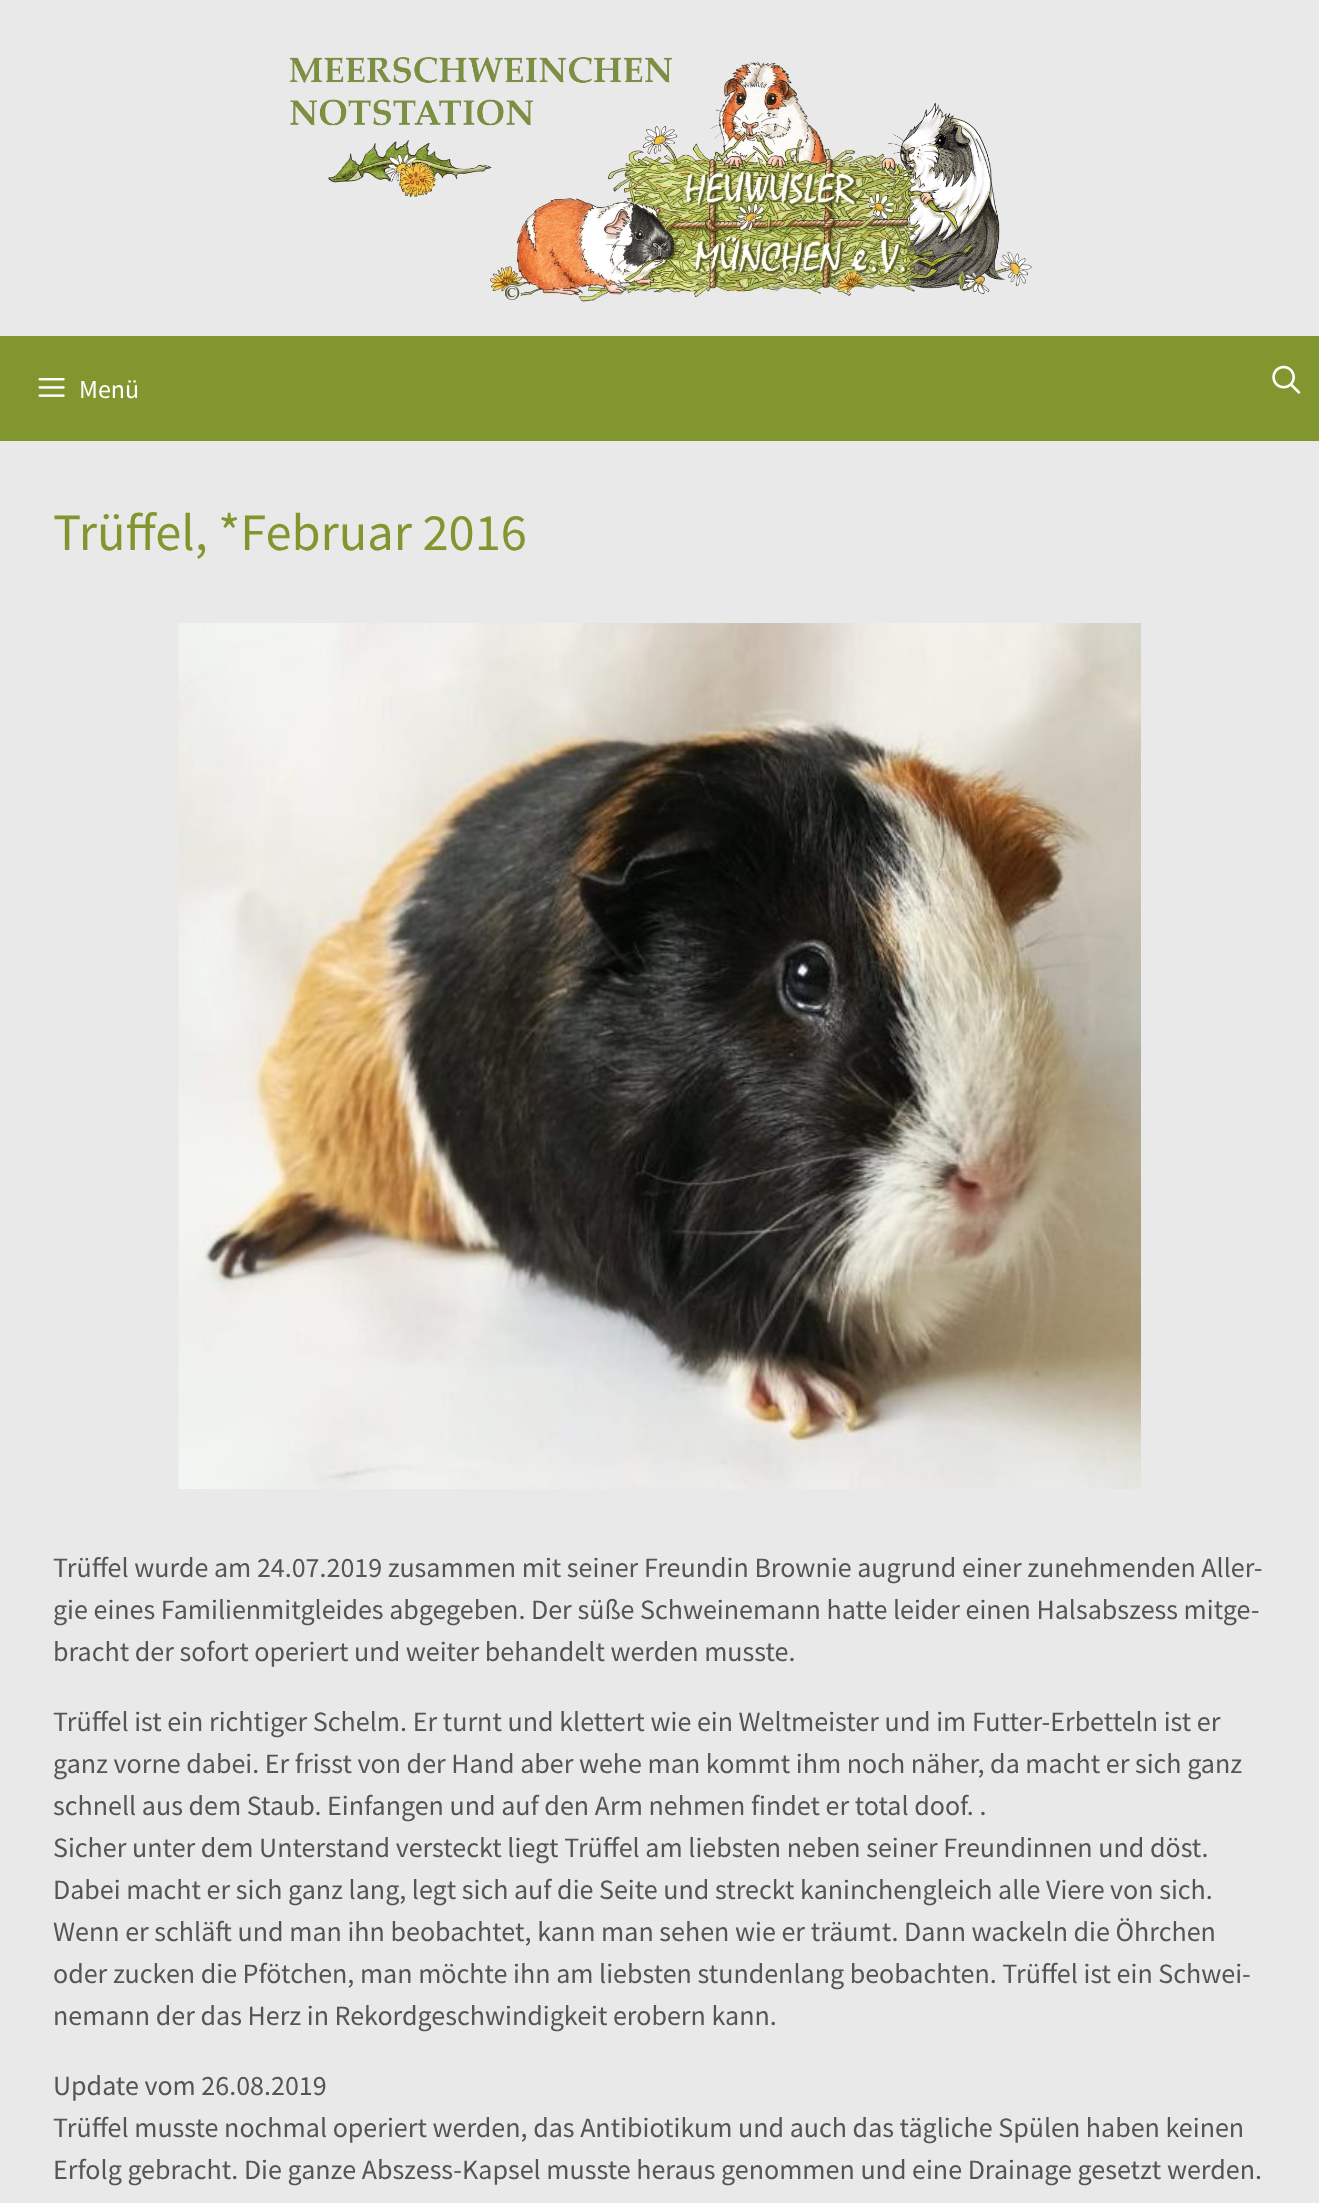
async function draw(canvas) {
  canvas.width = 1319;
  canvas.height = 2203;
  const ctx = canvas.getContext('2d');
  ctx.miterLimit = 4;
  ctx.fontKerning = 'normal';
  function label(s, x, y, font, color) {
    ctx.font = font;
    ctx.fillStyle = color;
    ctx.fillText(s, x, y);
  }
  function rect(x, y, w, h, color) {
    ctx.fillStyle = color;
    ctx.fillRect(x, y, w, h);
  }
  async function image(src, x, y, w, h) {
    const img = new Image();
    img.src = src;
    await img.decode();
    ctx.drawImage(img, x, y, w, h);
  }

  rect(0, 0, 1319, 2203, '#e9e9e9');
  await image('assets/img1.png', 289, 57, 743, 245);
  rect(0, 336, 1319, 105, '#81962f');
  await image('assets/img2.png', 38, 378, 27, 19);
  label('Menü', 79, 398, '26px Source Sans Pro', '#fff');
  await image('assets/img3.png', 1272, 365, 29, 29);
  label('Trüffel, *Februar 2016', 53, 550, '52.5px Source Sans Pro', '#81962f');
  await image('assets/img4.png', 178, 623, 963, 866);
  label('Trüffel wurde am 24.07.2019 zusammen mit seiner Freundin Brownie augrund einer zunehmenden Aller-', 53, 1577, '28px Source Sans Pro', '#555');
  label('gie eines Familienmitgleides abgegeben. Der süße Schweinemann hatte leider einen Halsabszess mitge-', 53, 1619, '28px Source Sans Pro', '#555');
  label('bracht der sofort operiert und weiter behandelt werden musste.', 53, 1661, '28px Source Sans Pro', '#555');
  label('Trüffel ist ein richtiger Schelm. Er turnt und klettert wie ein Weltmeister und im Futter-Erbetteln ist er', 53, 1731, '28px Source Sans Pro', '#555');
  label('ganz vorne dabei. Er frisst von der Hand aber wehe man kommt ihm noch näher, da macht er sich ganz', 53, 1773, '28px Source Sans Pro', '#555');
  label('schnell aus dem Staub. Einfangen und auf den Arm nehmen findet er total doof. .', 53, 1815, '28px Source Sans Pro', '#555');
  label('Sicher unter dem Unterstand versteckt liegt Trüffel am liebsten neben seiner Freundinnen und döst.', 53, 1857, '28px Source Sans Pro', '#555');
  label('Dabei macht er sich ganz lang, legt sich auf die Seite und streckt kaninchengleich alle Viere von sich.', 53, 1899, '28px Source Sans Pro', '#555');
  label('Wenn er schläft und man ihn beobachtet, kann man sehen wie er träumt. Dann wackeln die Öhrchen', 53, 1941, '28px Source Sans Pro', '#555');
  label('oder zucken die Pfötchen, man möchte ihn am liebsten stundenlang beobachten. Trüffel ist ein Schwei-', 53, 1983, '28px Source Sans Pro', '#555');
  label('nemann der das Herz in Rekordgeschwindigkeit erobern kann.', 53, 2025, '28px Source Sans Pro', '#555');
  label('Update vom 26.08.2019', 53, 2095, '28px Source Sans Pro', '#555');
  label('Trüffel musste nochmal operiert werden, das Antibiotikum und auch das tägliche Spülen haben keinen', 53, 2137, '28px Source Sans Pro', '#555');
  label('Erfolg gebracht. Die ganze Abszess-Kapsel musste heraus genommen und eine Drainage gesetzt werden.', 53, 2179, '28px Source Sans Pro', '#555');
}

draw(document.querySelector('canvas'));
